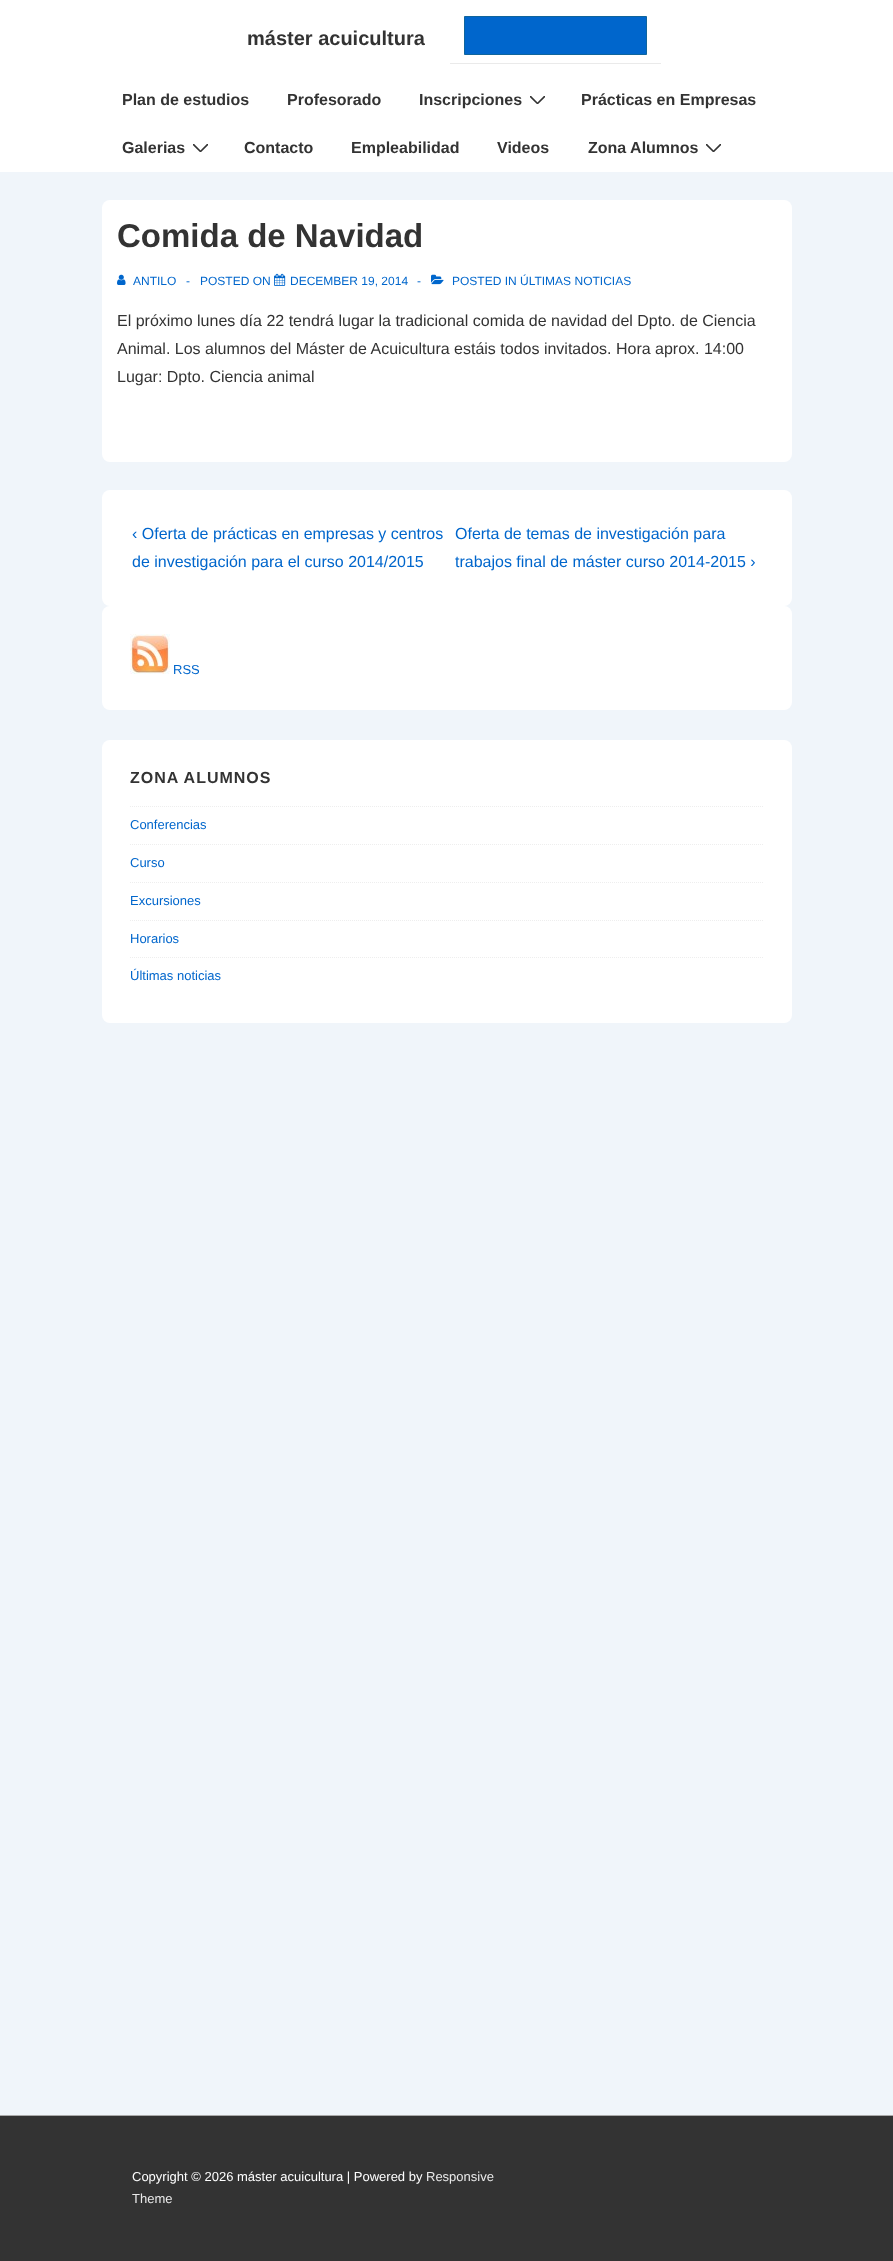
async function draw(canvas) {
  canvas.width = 893;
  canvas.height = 2261;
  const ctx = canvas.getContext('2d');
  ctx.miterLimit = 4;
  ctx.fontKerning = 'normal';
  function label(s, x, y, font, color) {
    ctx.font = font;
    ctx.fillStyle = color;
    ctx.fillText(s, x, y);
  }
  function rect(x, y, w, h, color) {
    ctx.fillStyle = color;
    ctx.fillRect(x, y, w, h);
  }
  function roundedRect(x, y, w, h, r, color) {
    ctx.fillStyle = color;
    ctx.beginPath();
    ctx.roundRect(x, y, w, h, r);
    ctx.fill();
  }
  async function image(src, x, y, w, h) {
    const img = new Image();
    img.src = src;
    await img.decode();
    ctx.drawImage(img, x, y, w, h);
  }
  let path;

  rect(0, 0, 893, 2261, '#f0f5fa');
  rect(0, 0, 893, 172, '#fff');
  label('máster acuicultura', 247, 45, 'bold 20px Liberation Sans', '#333');
  rect(450, 63, 211, 1, '#eaeaea');
  ctx.fillStyle = '#06c';
  ctx.beginPath();
  ctx.rect(464.5, 16.5, 182, 38);
  ctx.fill();
  ctx.strokeStyle = '#10659c';
  ctx.stroke();
  label('Plan de estudios', 122, 105, 'bold 16px Liberation Sans', '#333');
  label('Profesorado', 287, 105, 'bold 16px Liberation Sans', '#333');
  label('Inscripciones', 419, 105, 'bold 16px Liberation Sans', '#333');
  ctx.save();
  ctx.beginPath();
  ctx.rect(530, 96, 15, 8);
  ctx.clip();
  path = new Path2D('M530.5 96.5L537.5 103.5L544.5 96.5');
  ctx.strokeStyle = '#333';
  ctx.lineWidth = 1.6;
  ctx.lineCap = 'round';
  ctx.stroke(path);
  ctx.restore();
  label('Prácticas en Empresas', 581, 105, 'bold 16px Liberation Sans', '#333');
  label('Galerias', 122, 153, 'bold 16px Liberation Sans', '#333');
  ctx.save();
  ctx.beginPath();
  ctx.rect(193, 144, 15, 8);
  ctx.clip();
  path = new Path2D('M193.5 144.5L200.5 151.5L207.5 144.5');
  ctx.strokeStyle = '#333';
  ctx.lineWidth = 1.6;
  ctx.lineCap = 'round';
  ctx.stroke(path);
  ctx.restore();
  label('Contacto', 244, 153, 'bold 16px Liberation Sans', '#333');
  label('Empleabilidad', 351, 153, 'bold 16px Liberation Sans', '#333');
  label('Videos', 497, 153, 'bold 16px Liberation Sans', '#333');
  label('Zona Alumnos', 588, 153, 'bold 16px Liberation Sans', '#333');
  ctx.save();
  ctx.beginPath();
  ctx.rect(706, 144, 15, 8);
  ctx.clip();
  path = new Path2D('M706.5 144.5L713.5 151.5L720.5 144.5');
  ctx.strokeStyle = '#333';
  ctx.lineWidth = 1.6;
  ctx.lineCap = 'round';
  ctx.stroke(path);
  ctx.restore();
  roundedRect(102, 200, 690, 262, 8, '#fff');
  label('Comida de Navidad', 117, 247, 'bold 33px Liberation Sans', '#333');
  await image('assets/img1.png', 117, 274, 9, 11);
  label('ANTILO', 133, 285, '12px Liberation Sans', '#06c');
  label('-', 186, 285, '12px Liberation Sans', '#06c');
  label('POSTED ON', 200, 285, '12px Liberation Sans', '#06c');
  await image('assets/img2.png', 274, 273, 12, 13);
  label('DECEMBER 19, 2014', 290, 285, '12px Liberation Sans', '#06c');
  label('-', 417, 285, '12px Liberation Sans', '#06c');
  await image('assets/img3.png', 431, 274, 13, 11);
  label('POSTED IN ÚLTIMAS NOTICIAS', 452, 285, '12px Liberation Sans', '#06c');
  label('El próximo lunes día 22 tendrá lugar la tradicional comida de navidad del Dpto. de Ciencia', 117, 326, '16px Liberation Sans', '#333');
  label('Animal. Los alumnos del Máster de Acuicultura estáis todos invitados. Hora aprox. 14:00', 117, 354, '16px Liberation Sans', '#333');
  label('Lugar: Dpto. Ciencia animal', 117, 382, '16px Liberation Sans', '#333');
  roundedRect(102, 490, 690, 116, 8, '#fff');
  label('‹ Oferta de prácticas en empresas y centros', 132, 539, '16px Liberation Sans', '#06c');
  label('de investigación para el curso 2014/2015', 132, 567, '16px Liberation Sans', '#06c');
  label('Oferta de temas de investigación para', 455, 539, '16px Liberation Sans', '#06c');
  label('trabajos final de máster curso 2014-2015 ›', 455, 567, '16px Liberation Sans', '#06c');
  roundedRect(102, 606, 690, 104, 8, '#fff');
  await image('assets/img4.png', 130, 634, 40, 40);
  label('RSS', 173, 674, '13px Liberation Sans', '#06c');
  roundedRect(102, 740, 690, 283, 8, '#fff');
  ctx.letterSpacing = '1px';
  label('ZONA ALUMNOS', 130, 783, 'bold 16px Liberation Sans', '#333');
  path = new Path2D('M130 806.5H764');
  ctx.strokeStyle = '#eee';
  ctx.setLineDash([1, 1]);
  ctx.stroke(path);
  ctx.letterSpacing = '0px';
  label('Conferencias', 130, 829, '13px Liberation Sans', '#06c');
  path = new Path2D('M130 844.5H764');
  ctx.stroke(path);
  label('Curso', 130, 867, '13px Liberation Sans', '#06c');
  path = new Path2D('M130 882.5H764');
  ctx.stroke(path);
  label('Excursiones', 130, 905, '13px Liberation Sans', '#06c');
  path = new Path2D('M130 920.5H764');
  ctx.stroke(path);
  label('Horarios', 130, 943, '13px Liberation Sans', '#06c');
  path = new Path2D('M130 957.5H764');
  ctx.stroke(path);
  label('Últimas noticias', 130, 980, '13px Liberation Sans', '#06c');
  rect(0, 2116, 893, 145, '#333');
  rect(0, 2115, 893, 1, '#aaa');
  label('Copyright © 2026 máster acuicultura | Powered by', 132, 2181, '13px Liberation Sans', '#fff');
  label('Responsive', 426, 2181, '13px Liberation Sans', '#eaeaea');
  label('Theme', 132, 2203, '13px Liberation Sans', '#eaeaea');
}

draw(document.querySelector('canvas'));
